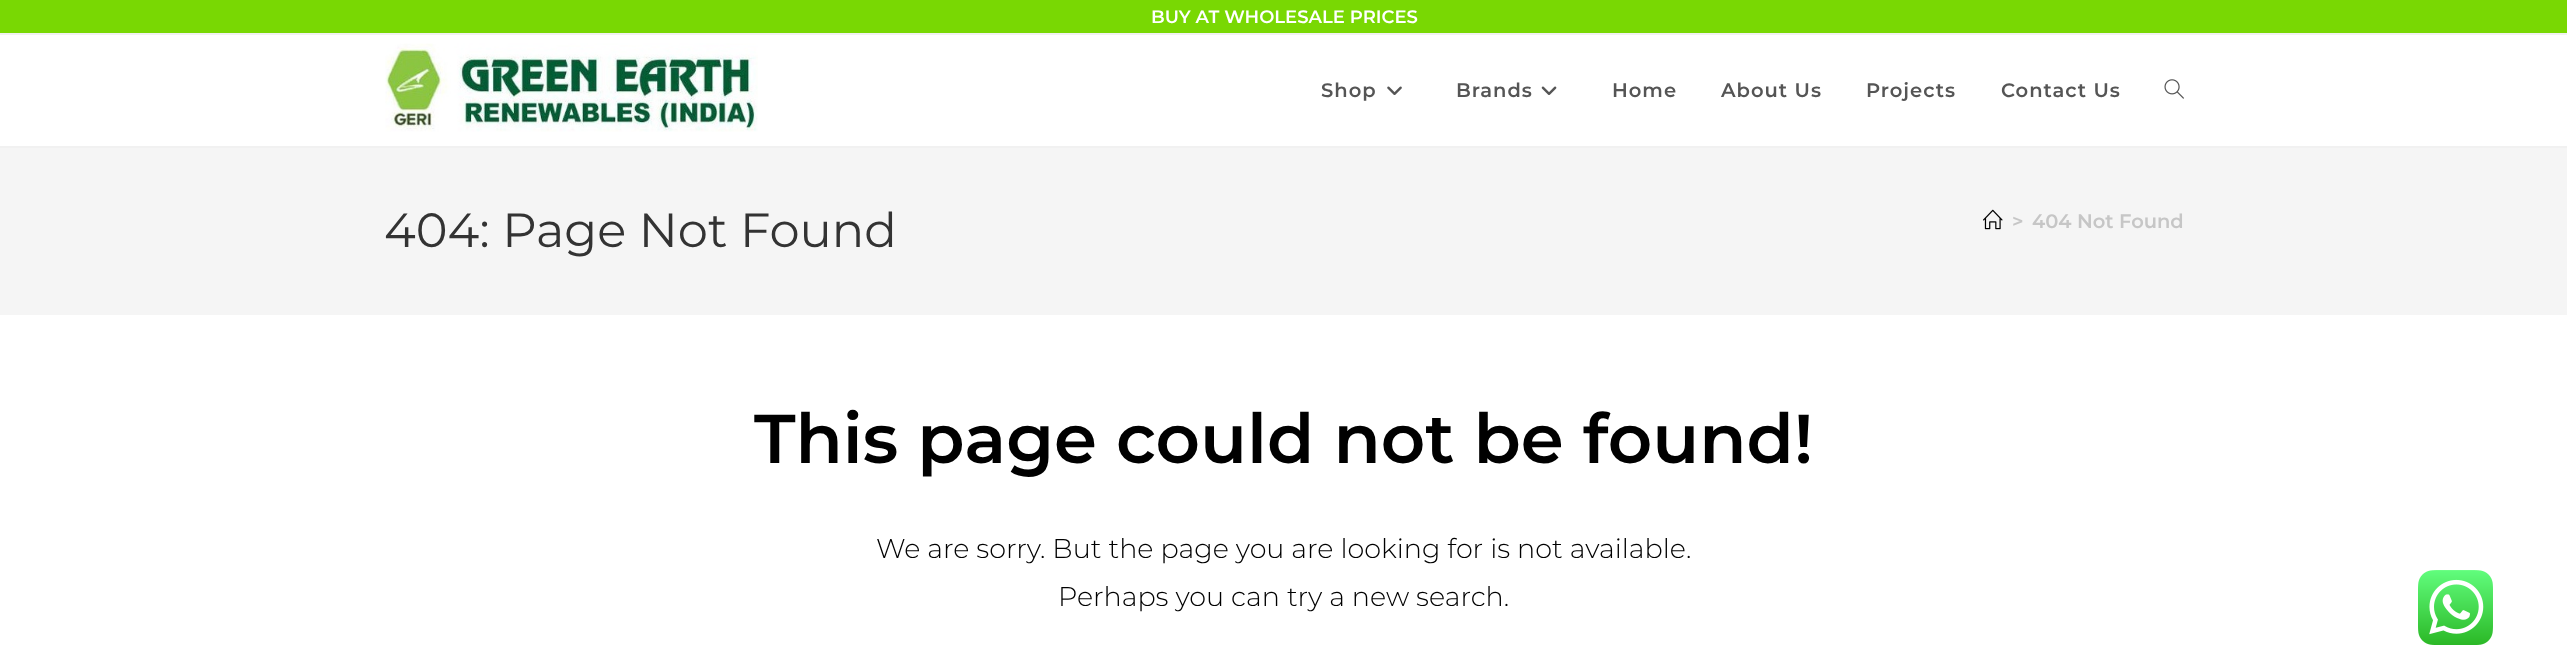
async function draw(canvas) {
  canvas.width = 2567;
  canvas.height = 659;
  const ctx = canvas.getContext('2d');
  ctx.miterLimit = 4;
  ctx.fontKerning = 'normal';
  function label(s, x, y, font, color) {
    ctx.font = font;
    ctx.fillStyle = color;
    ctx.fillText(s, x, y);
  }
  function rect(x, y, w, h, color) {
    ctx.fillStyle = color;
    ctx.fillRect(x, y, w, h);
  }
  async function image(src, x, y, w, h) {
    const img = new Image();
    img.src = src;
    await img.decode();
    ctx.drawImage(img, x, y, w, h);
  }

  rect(0, 0, 2567, 659, '#fff');
  rect(0, 0, 2567, 33, '#79d803');
  rect(0, 33, 2567, 2, '#f1f1f1');
  label('BUY AT WHOLESALE PRICES', 1151, 23, '600 18px Montserrat', '#fff');
  rect(0, 146, 2567, 2, '#f1f1f1');
  await image('assets/img1.png', 385, 43, 373, 89);
  ctx.letterSpacing = '1px';
  label('Shop', 1321, 97, '600 19.5px Montserrat', '#555');
  await image('assets/img2.png', 1387, 86, 15, 9);
  label('Brands', 1456, 97, '600 19.5px Montserrat', '#555');
  await image('assets/img3.png', 1541, 86, 16, 9);
  label('Home', 1612, 97, '600 19.5px Montserrat', '#555');
  label('About Us', 1721, 97, '600 19.5px Montserrat', '#555');
  label('Projects', 1866, 97, '600 19.5px Montserrat', '#555');
  label('Contact Us', 2001, 97, '600 19.5px Montserrat', '#555');
  await image('assets/img4.png', 2164, 79, 20, 20);
  rect(0, 148, 2567, 167, '#f5f5f5');
  ctx.letterSpacing = '0px';
  label('404: Page Not Found', 384, 247, '48px Montserrat', '#333');
  await image('assets/img5.png', 1983, 209, 20, 21);
  label('>', 2012, 228, '600 19.5px Montserrat', '#c6c6c6');
  label('404 Not Found', 2032, 228, '600 19.5px Montserrat', '#c6c6c6');
  label('This page could not be found!', 754, 463, '600 69px Montserrat', '#000');
  label('We are sorry. But the page you are looking for is not available.', 876, 558, '300 27px Montserrat', '#000');
  label('Perhaps you can try a new search.', 1058, 606, '300 27px Montserrat', '#000');
  await image('assets/img6.png', 2418, 570, 75, 75);
}

draw(document.querySelector('canvas'));
